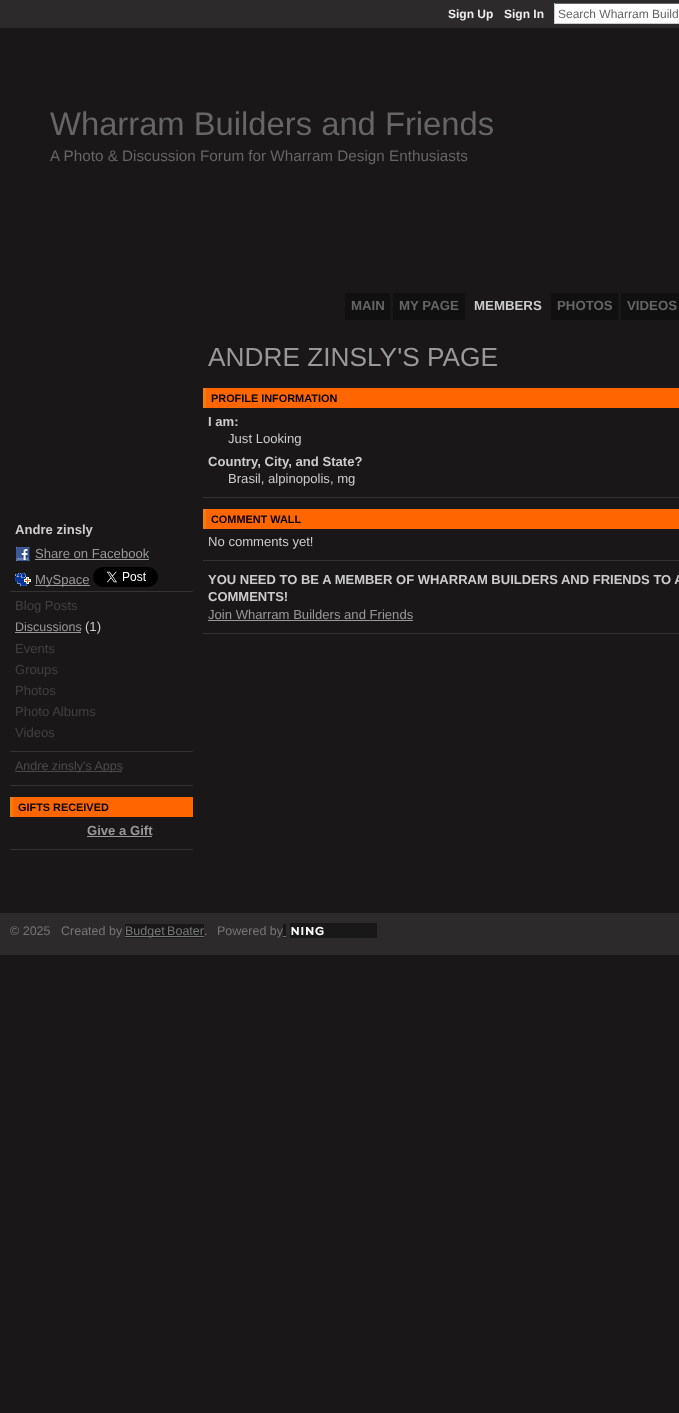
async function draw(canvas) {
  canvas.width = 679;
  canvas.height = 1413;
  const ctx = canvas.getContext('2d');
  ctx.miterLimit = 4;
  ctx.fontKerning = 'normal';
  function label(s, x, y, font, color) {
    ctx.font = font;
    ctx.fillStyle = color;
    ctx.fillText(s, x, y);
  }
  function rect(x, y, w, h, color) {
    ctx.fillStyle = color;
    ctx.fillRect(x, y, w, h);
  }
  async function image(src, x, y, w, h) {
    const img = new Image();
    img.src = src;
    await img.decode();
    ctx.drawImage(img, x, y, w, h);
  }

  rect(0, 0, 679, 1413, '#191718');
  rect(0, 0, 679, 28, '#2c2a2a');
  label('Sign Up', 448, 18, 'bold 12px Liberation Sans', '#eee');
  label('Sign In', 504, 18, 'bold 12px Liberation Sans', '#eee');
  rect(555, 4, 124, 19, '#fff');
  rect(554, 3, 125, 1, '#666');
  rect(554, 23, 125, 1, '#ccc');
  rect(554, 3, 1, 21, '#ccc');
  label('Search Wharram Build', 558, 18, '12px Liberation Sans', '#666');
  label('Wharram Builders and Friends', 50, 135, '32.75px Liberation Sans', '#666');
  label('A Photo & Discussion Forum for Wharram Design Enthusiasts', 50, 161, '15.25px Liberation Sans', '#666');
  rect(345, 293, 45, 27, '#101010');
  label('MAIN', 351, 310, 'bold 13.25px Liberation Sans', '#666');
  rect(393, 293, 72, 27, '#101010');
  label('MY PAGE', 399, 310, 'bold 13.25px Liberation Sans', '#666');
  label('MEMBERS', 474, 310, 'bold 13.25px Liberation Sans', '#ccc');
  rect(551, 293, 67, 27, '#101010');
  label('PHOTOS', 557, 310, 'bold 13.25px Liberation Sans', '#666');
  rect(621, 293, 58, 27, '#101010');
  label('VIDEOS', 627, 310, 'bold 13.25px Liberation Sans', '#666');
  label('ANDRE ZINSLY\'S PAGE', 208, 366, '26.25px Liberation Sans', '#999');
  rect(206, 388, 473, 20, '#f60');
  rect(203, 388, 3, 20, '#f07e0b');
  label('PROFILE INFORMATION', 211, 402, 'bold 10.9px Liberation Sans', '#000');
  rect(203, 497, 476, 1, '#333');
  label('I am:', 208, 426, 'bold 13.1px Liberation Sans', '#ccc');
  label('Just Looking', 228, 443, '13.1px Liberation Sans', '#ccc');
  label('Country, City, and State?', 208, 466, 'bold 13.1px Liberation Sans', '#ccc');
  label('Brasil, alpinopolis, mg', 228, 483, '13.1px Liberation Sans', '#ccc');
  rect(206, 509, 473, 20, '#f60');
  rect(203, 509, 3, 20, '#f07e0b');
  label('COMMENT WALL', 211, 523, 'bold 10.9px Liberation Sans', '#000');
  rect(203, 560, 476, 1, '#333');
  label('No comments yet!', 208, 546, '13.1px Liberation Sans', '#ccc');
  rect(203, 633, 476, 1, '#333');
  label('YOU NEED TO BE A MEMBER OF WHARRAM BUILDERS AND FRIENDS TO A', 208, 584, 'bold 13px Liberation Sans', '#ccc');
  label('COMMENTS!', 208, 601, 'bold 13px Liberation Sans', '#ccc');
  label('Join Wharram Builders and Friends', 208, 619, '13.1px Liberation Sans', '#999');
  rect(208, 620, 205, 1, '#999');
  rect(10, 591, 183, 1, '#333');
  label('Andre zinsly', 15, 534, 'bold 13.1px Liberation Sans', '#ccc');
  await image('assets/img1.png', 16, 547, 14, 14);
  label('Share on Facebook', 35, 558, '13.1px Liberation Sans', '#999');
  rect(35, 559, 114, 1, '#999');
  await image('assets/img2.png', 15, 573, 16, 13);
  rect(35, 585, 55, 1, '#999');
  label('MySpace', 35, 584, '13.1px Liberation Sans', '#999');
  await image('assets/img3.png', 93, 567, 65, 20);
  rect(10, 751, 183, 1, '#333');
  label('Blog Posts', 15, 610, '13.1px Liberation Sans', '#424141');
  label('Discussions', 15, 631, '12.5px Liberation Sans', '#999');
  rect(15, 632, 66, 1, '#999');
  label('(1)', 85, 631, '13.1px Liberation Sans', '#ccc');
  label('Events', 15, 653, '13.1px Liberation Sans', '#424141');
  label('Groups', 15, 674, '13.1px Liberation Sans', '#424141');
  label('Photos', 15, 695, '13.1px Liberation Sans', '#424141');
  label('Photo Albums', 15, 716, '13.1px Liberation Sans', '#424141');
  label('Videos', 15, 737, '13.1px Liberation Sans', '#424141');
  rect(10, 785, 183, 1, '#333');
  rect(15, 771, 107, 1, '#4c4b4c');
  label('Andre zinsly\'s Apps', 15, 770, '12.5px Liberation Sans', '#4c4b4c');
  rect(13, 797, 180, 20, '#f60');
  rect(10, 797, 3, 20, '#f07e0b');
  label('GIFTS RECEIVED', 18, 811, 'bold 10.9px Liberation Sans', '#000');
  rect(10, 849, 183, 1, '#333');
  label('Give a Gift', 87, 835, 'bold 13.1px Liberation Sans', '#999');
  rect(87, 836, 65, 1, '#999');
  rect(0, 913, 679, 42, '#2c2a2a');
  label('© 2025', 10, 935, '12.5px Liberation Sans', '#777');
  label('Created by', 61, 935, '12.5px Liberation Sans', '#777');
  rect(125, 924, 79, 14, '#191818');
  rect(125, 936, 79, 1, '#777');
  ctx.wordSpacing = '-1px';
  label('Budget Boater', 125, 935, '12.5px Liberation Sans', '#777');
  ctx.wordSpacing = '0px';
  label('Powered by', 217, 935, '12.5px Liberation Sans', '#777');
  rect(283, 924, 3, 14, '#191818');
  rect(290, 923, 87, 15, '#191818');
  label('.', 204, 935, '12.5px Liberation Sans', '#777');
  await image('assets/img4.png', 291, 926, 33, 10);
  rect(283, 936, 3, 1, '#777');
}

draw(document.querySelector('canvas'));
